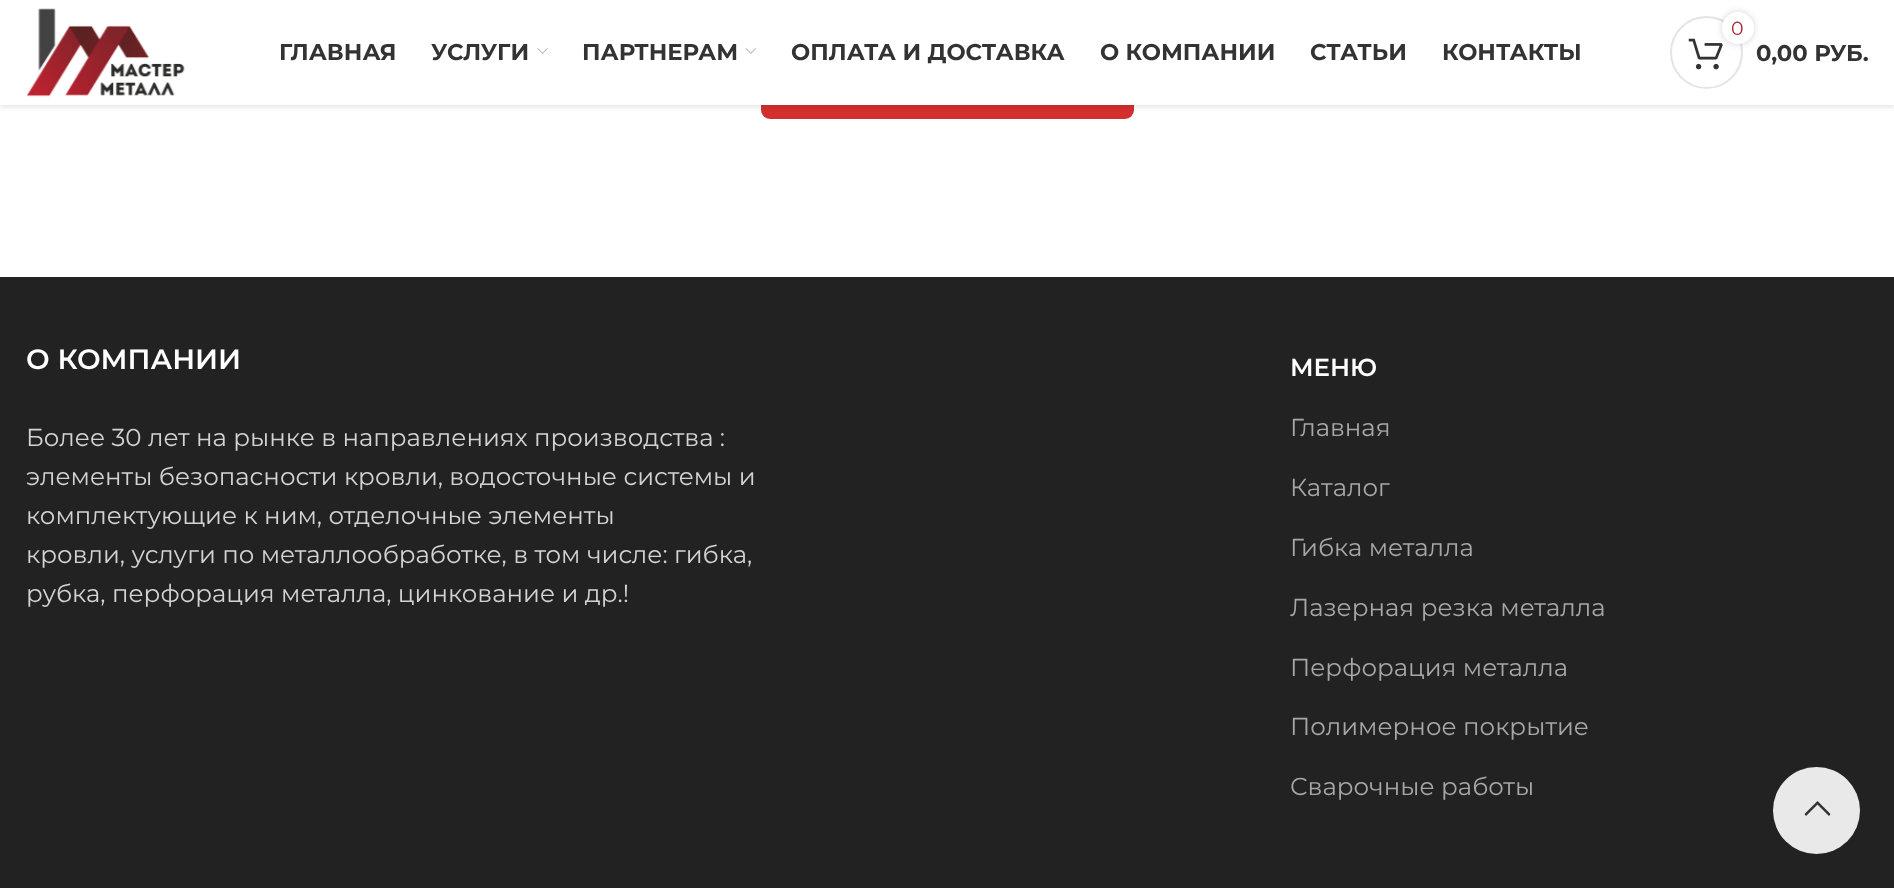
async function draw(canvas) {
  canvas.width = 1894;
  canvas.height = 888;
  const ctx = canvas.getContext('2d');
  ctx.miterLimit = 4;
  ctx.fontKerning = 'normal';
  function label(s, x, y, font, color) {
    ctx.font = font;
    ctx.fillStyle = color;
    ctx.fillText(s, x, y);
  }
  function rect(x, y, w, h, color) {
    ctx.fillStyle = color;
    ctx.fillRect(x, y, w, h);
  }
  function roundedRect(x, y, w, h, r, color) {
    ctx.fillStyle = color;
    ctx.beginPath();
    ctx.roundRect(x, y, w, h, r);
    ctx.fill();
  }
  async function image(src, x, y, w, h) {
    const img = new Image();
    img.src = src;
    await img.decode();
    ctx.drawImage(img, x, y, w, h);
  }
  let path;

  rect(0, 0, 1894, 888, '#fff');
  roundedRect(761, 39, 373, 80, 9, '#d32f2f');
  ctx.fillStyle = '#0000001a';
  ctx.filter = 'blur(2.5px)';
  ctx.beginPath();
  ctx.rect(0, 2, 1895, 105);
  ctx.fill();
  ctx.filter = 'none';
  rect(0, 0, 1894, 105, '#fff');
  await image('assets/img1.png', 26, 8, 159, 89);
  label('ГЛАВНАЯ', 279, 60, 'bold 22.75px Montserrat', '#333');
  label('УСЛУГИ', 431, 60, 'bold 22.75px Montserrat', '#333');
  await image('assets/img2.png', 537, 48, 11, 6);
  label('ПАРТНЕРАМ', 582, 60, 'bold 22.75px Montserrat', '#333');
  await image('assets/img3.png', 745, 48, 11, 6);
  label('ОПЛАТА И ДОСТАВКА', 791, 60, 'bold 22.75px Montserrat', '#333');
  label('О КОМПАНИИ', 1100, 60, 'bold 22.75px Montserrat', '#333');
  label('СТАТЬИ', 1310, 60, 'bold 22.75px Montserrat', '#333');
  label('КОНТАКТЫ', 1442, 60, 'bold 22.75px Montserrat', '#333');
  ctx.beginPath();
  ctx.arc(1706.5, 52.5, 35.5, 0, 2 * Math.PI);
  ctx.strokeStyle = '#e4e4e4';
  ctx.lineWidth = 2;
  ctx.stroke();
  await image('assets/img4.png', 1688, 38, 35, 32);
  ctx.fillStyle = '#0000002b';
  ctx.filter = 'blur(3.5px)';
  ctx.beginPath();
  ctx.roundRect(1722, 12, 32, 32, 16);
  ctx.fill();
  ctx.filter = 'none';
  ctx.fillStyle = '#fff';
  ctx.beginPath();
  ctx.arc(1738, 28, 16, 0, 2 * Math.PI);
  ctx.fill();
  label('0', 1731, 35, '19px Montserrat', '#a5212f');
  label('0,00 РУБ.', 1756, 61, 'bold 22.75px Montserrat', '#333');
  rect(0, 277, 1894, 611, '#222');
  label('О КОМПАНИИ', 26, 369, '600 28px Montserrat', '#fff');
  label('Более 30 лет на рынке в направлениях производства :', 26, 446, '24.5px Montserrat', '#d3d3d3');
  label('элементы безопасности кровли, водосточные системы и', 26, 485, '24.5px Montserrat', '#d3d3d3');
  label('комплектующие к ним, отделочные элементы', 26, 524, '24.5px Montserrat', '#d3d3d3');
  label('кровли, услуги по металлообработке, в том числе: гибка,', 26, 563, '24.5px Montserrat', '#d3d3d3');
  label('рубка, перфорация металла, цинкование и др.!', 26, 602, '24.5px Montserrat', '#d3d3d3');
  label('МЕНЮ', 1290, 376, '600 24.5px Montserrat', '#fff');
  label('Главная', 1290, 436, '24.5px Montserrat', '#a7a7a7');
  label('Каталог', 1290, 496, '24.5px Montserrat', '#a7a7a7');
  label('Гибка металла', 1290, 556, '24.5px Montserrat', '#a7a7a7');
  label('Лазерная резка металла', 1290, 616, '24.5px Montserrat', '#a7a7a7');
  label('Перфорация металла', 1290, 676, '24.5px Montserrat', '#a7a7a7');
  label('Полимерное покрытие', 1290, 735, '24.5px Montserrat', '#a7a7a7');
  label('Сварочные работы', 1290, 795, '24.5px Montserrat', '#a7a7a7');
  ctx.fillStyle = '#e9e9e9';
  ctx.beginPath();
  ctx.arc(1816.5, 810.5, 43.5, 0, 2 * Math.PI);
  ctx.fill();
  ctx.fillStyle = '#333';
  path = new Path2D('M1829 816L1830.5 814L1817.5 801L1804.5 814L1806 816L1817.5 804.5Z');
  ctx.fill(path);
}

draw(document.querySelector('canvas'));
